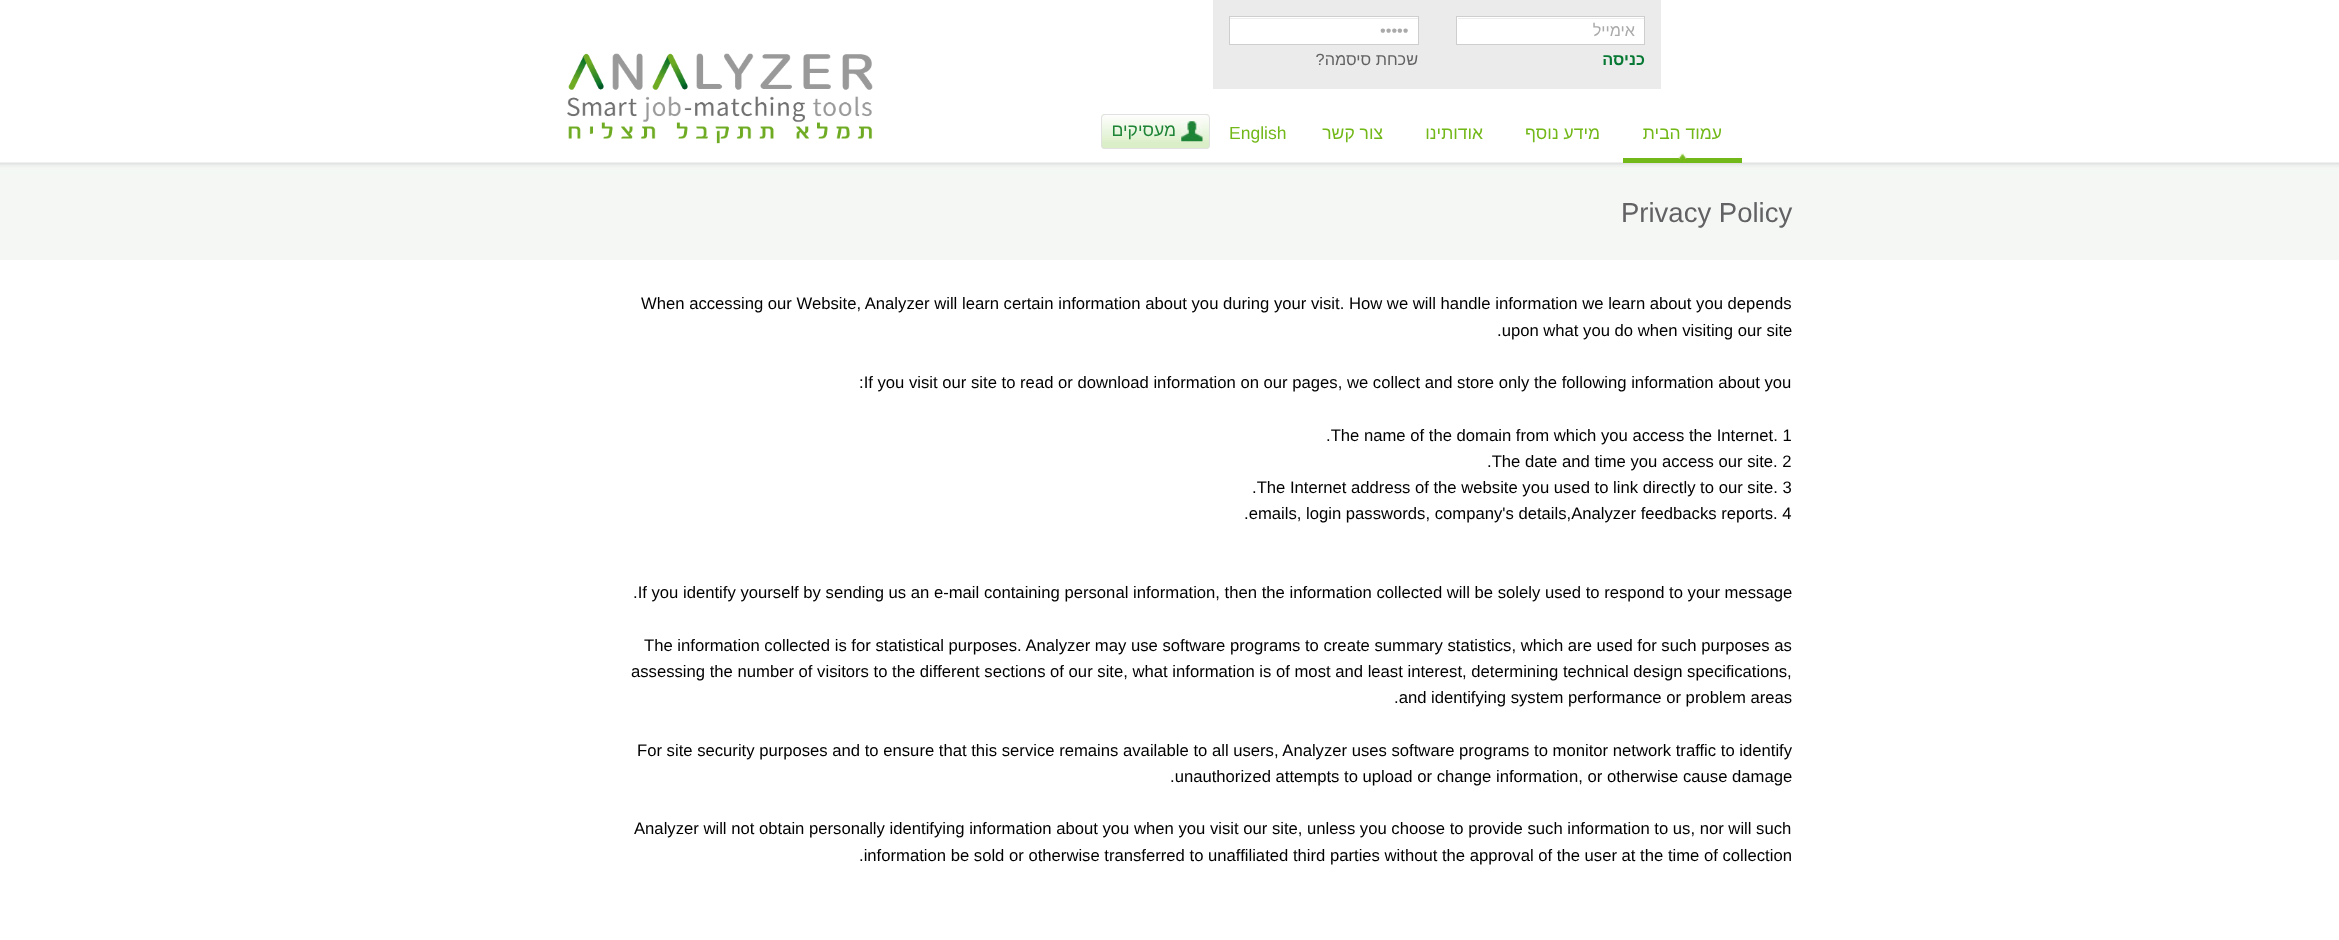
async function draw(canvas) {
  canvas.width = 2339;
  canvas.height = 940;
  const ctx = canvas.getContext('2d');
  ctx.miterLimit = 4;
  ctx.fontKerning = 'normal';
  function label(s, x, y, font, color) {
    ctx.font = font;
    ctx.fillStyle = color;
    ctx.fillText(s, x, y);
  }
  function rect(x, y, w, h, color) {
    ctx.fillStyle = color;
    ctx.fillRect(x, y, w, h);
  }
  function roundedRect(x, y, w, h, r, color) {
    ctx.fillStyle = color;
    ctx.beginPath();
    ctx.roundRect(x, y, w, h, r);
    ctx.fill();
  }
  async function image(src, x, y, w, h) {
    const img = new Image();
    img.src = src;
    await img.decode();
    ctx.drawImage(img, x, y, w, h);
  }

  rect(0, 0, 2339, 940, '#fff');
  await image('assets/img1.png', 567, 53, 306, 91);
  rect(1213, 0, 448, 89, '#ebebeb');
  rect(1230, 17, 188, 27, '#fff');
  rect(1230, 18, 188, 1, '#ececec');
  ctx.strokeStyle = '#cecece';
  ctx.strokeRect(1229.5, 16.5, 189, 28);
  label('•••••', 1380, 36, '16.25px Liberation Sans', '#aaa');
  rect(1457, 17, 187, 27, '#fff');
  rect(1458, 18, 186, 1, '#ececec');
  ctx.strokeRect(1456.5, 16.5, 188, 28);
  ctx.direction = 'rtl';
  label('אימייל', 1635, 36, '16.25px Liberation Sans', '#aaa');
  label('שכחת סיסמה?', 1418, 65, '16.25px Liberation Sans', '#626264');
  label('כניסה', 1645, 65, 'bold 16.25px Liberation Sans', '#087935');
  roundedRect(1101, 114, 109, 35, 4, '#daeec8');
  await image('assets/img2.png', 1101, 115, 109, 27);
  ctx.beginPath();
  ctx.roundRect(1101.5, 114.5, 108, 34, 3.5);
  ctx.strokeStyle = '#e1e1e1';
  ctx.stroke();
  label('מעסיקים', 1176, 136, '17.5px Liberation Sans', '#1e8436');
  await image('assets/img3.png', 1181, 121, 22, 21);
  ctx.direction = 'ltr';
  label('English', 1229, 139, '17.5px Liberation Sans', '#73b819');
  ctx.direction = 'rtl';
  label('צור קשר', 1383, 139, '17.5px Liberation Sans', '#73b819');
  label('אודותינו', 1483, 139, '17.5px Liberation Sans', '#73b819');
  label('מידע נוסף', 1600, 139, '17.5px Liberation Sans', '#73b819');
  await image('assets/img5.png', 0, 162, 2339, 98);
  rect(1623, 158, 119, 5, '#72b819');
  await image('assets/img4.png', 1678, 153, 9, 9);
  label('עמוד הבית', 1722, 139, '17.5px Liberation Sans', '#73b819');
  ctx.direction = 'ltr';
  label('Privacy Policy', 1621, 222, '27.5px Liberation Sans', '#626264');
  label('When accessing our Website, Analyzer will learn certain information about you during your visit. How we will handle information we learn about you depends', 641, 309, '16.67px Liberation Sans', '#000');
  label('.upon what you do when visiting our site', 1497, 336, '16.67px Liberation Sans', '#000');
  label(':If you visit our site to read or download information on our pages, we collect and store only the following information about you', 859, 388, '16.67px Liberation Sans', '#000');
  label('.The name of the domain from which you access the Internet. 1', 1326, 441, '16.67px Liberation Sans', '#000');
  label('.The date and time you access our site. 2', 1487, 467, '16.67px Liberation Sans', '#000');
  label('.The Internet address of the website you used to link directly to our site. 3', 1252, 493, '16.67px Liberation Sans', '#000');
  label('.emails, login passwords, company\'s details,Analyzer feedbacks reports. 4', 1244, 519, '16.67px Liberation Sans', '#000');
  label('.If you identify yourself by sending us an e-mail containing personal information, then the information collected will be solely used to respond to your message', 633, 598, '16.67px Liberation Sans', '#000');
  label('The information collected is for statistical purposes. Analyzer may use software programs to create summary statistics, which are used for such purposes as', 644, 651, '16.67px Liberation Sans', '#000');
  label('assessing the number of visitors to the different sections of our site, what information is of most and least interest, determining technical design specifications,', 631, 677, '16.67px Liberation Sans', '#000');
  label('.and identifying system performance or problem areas', 1394, 703, '16.67px Liberation Sans', '#000');
  label('For site security purposes and to ensure that this service remains available to all users, Analyzer uses software programs to monitor network traffic to identify', 637, 756, '16.67px Liberation Sans', '#000');
  label('.unauthorized attempts to upload or change information, or otherwise cause damage', 1170, 782, '16.67px Liberation Sans', '#000');
  label('Analyzer will not obtain personally identifying information about you when you visit our site, unless you choose to provide such information to us, nor will such', 634, 834, '16.67px Liberation Sans', '#000');
  label('.information be sold or otherwise transferred to unaffiliated third parties without the approval of the user at the time of collection', 859, 861, '16.67px Liberation Sans', '#000');
}

draw(document.querySelector('canvas'));
